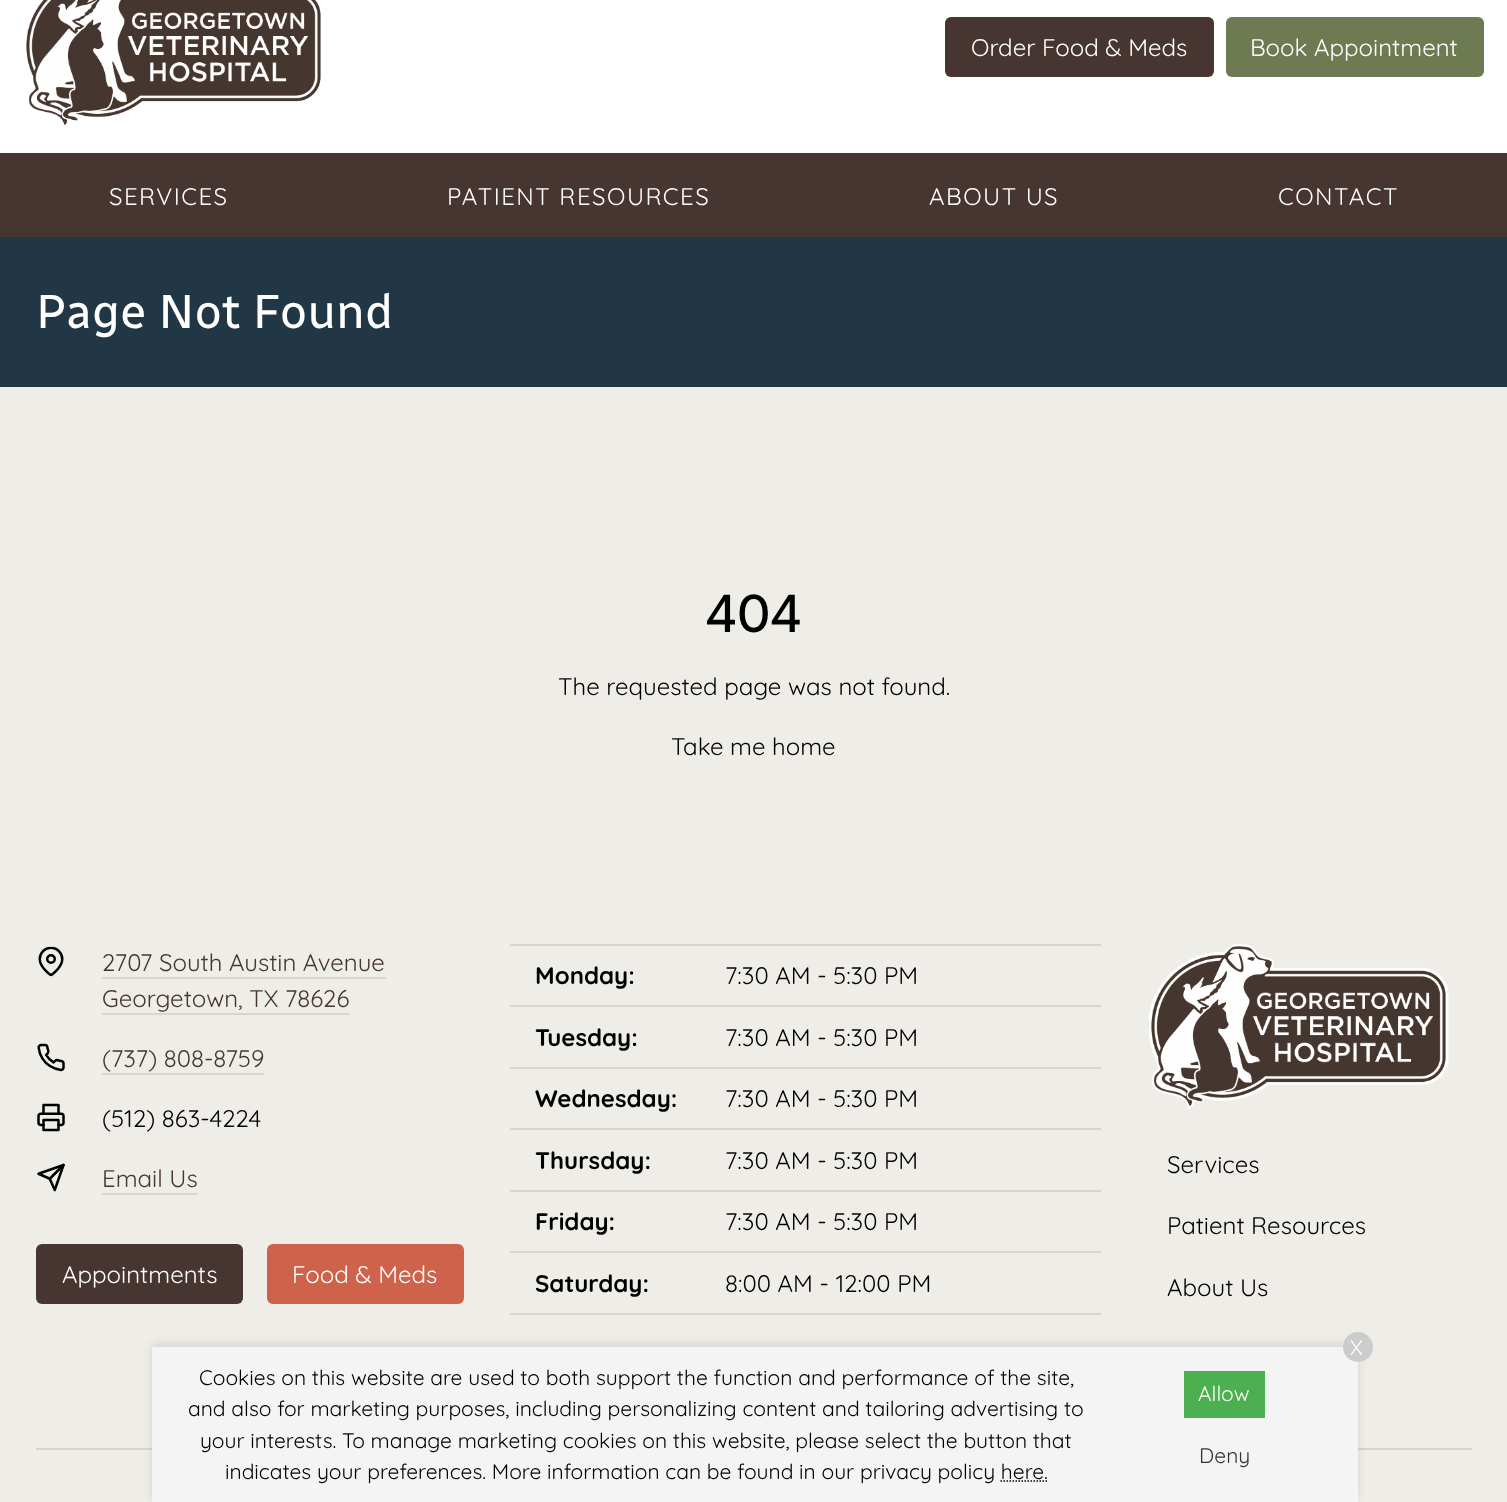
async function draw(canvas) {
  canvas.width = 1507;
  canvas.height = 1502;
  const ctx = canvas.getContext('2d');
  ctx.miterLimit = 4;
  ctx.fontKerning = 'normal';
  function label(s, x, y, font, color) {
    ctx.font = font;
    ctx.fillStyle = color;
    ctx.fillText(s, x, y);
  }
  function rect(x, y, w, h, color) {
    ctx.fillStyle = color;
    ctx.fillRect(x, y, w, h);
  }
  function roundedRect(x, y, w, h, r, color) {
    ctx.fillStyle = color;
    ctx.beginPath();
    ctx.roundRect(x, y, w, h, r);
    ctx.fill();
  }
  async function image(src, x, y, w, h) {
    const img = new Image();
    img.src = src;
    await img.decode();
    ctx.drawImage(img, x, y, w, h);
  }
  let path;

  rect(0, 0, 1507, 1502, '#fff');
  await image('assets/img1.png', 26, 0, 295, 126);
  roundedRect(945, 17, 269, 60, 6, '#463530');
  label('Order Food & Meds', 971, 56, '24px Quicksand', '#fff');
  roundedRect(1226, 17, 258, 60, 6, '#6e7a52');
  label('Book Appointment', 1250, 56, '24px Quicksand', '#fff');
  rect(0, 153, 1507, 84, '#463530');
  ctx.letterSpacing = '1.5px';
  label('SERVICES', 109, 205, '24px Quicksand', '#fff');
  label('PATIENT RESOURCES', 447, 205, '24px Quicksand', '#fff');
  label('ABOUT US', 929, 205, '24px Quicksand', '#fff');
  label('CONTACT', 1278, 205, '24px Quicksand', '#fff');
  rect(0, 237, 1507, 150, '#213745');
  ctx.letterSpacing = '0px';
  label('Page Not Found', 36, 328, '48px Radio Canada', '#fff');
  rect(0, 387, 1507, 1115, '#efede7');
  label('404', 705, 632, '54px Radio Canada', '#000');
  label('The requested page was not found.', 558, 695, '24px Quicksand', '#000');
  label('Take me home', 671, 755, '24px Quicksand', '#000');
  await image('assets/img2.png', 38, 946, 26, 31);
  label('2707 South Austin Avenue', 102, 971, '24px Quicksand', '#463530');
  rect(102, 977, 284, 2, '#d7d5d0');
  label('Georgetown, TX 78626', 102, 1007, '24px Quicksand', '#463530');
  rect(102, 1013, 248, 2, '#d7d5d0');
  await image('assets/img3.png', 37, 1043, 28, 29);
  label('(737) 808-8759', 102, 1067, '24px Quicksand', '#463530');
  rect(102, 1073, 162, 2, '#d7d5d0');
  await image('assets/img4.png', 37, 1103, 28, 29);
  label('(512) 863-4224', 102, 1127, '24px Quicksand', '#000');
  await image('assets/img5.png', 37, 1163, 28, 29);
  label('Email Us', 102, 1187, '24px Quicksand', '#463530');
  rect(102, 1193, 96, 2, '#d7d5d0');
  roundedRect(36, 1244, 207, 60, 6, '#463530');
  label('Appointments', 62, 1283, '24px Quicksand', '#fff');
  roundedRect(267, 1244, 197, 60, 6, '#cf624a');
  label('Food & Meds', 292, 1283, '24px Quicksand', '#fff');
  rect(510, 944, 591, 2, '#d7d5d0');
  label('Monday:', 535, 984, 'bold 24px Quicksand', '#000');
  label('7:30 AM - 5:30 PM', 725, 984, '24px Quicksand', '#000');
  rect(510, 1005, 591, 2, '#d7d5d0');
  label('Tuesday:', 535, 1046, 'bold 24px Quicksand', '#000');
  label('7:30 AM - 5:30 PM', 725, 1046, '24px Quicksand', '#000');
  rect(510, 1067, 591, 2, '#d7d5d0');
  label('Wednesday:', 535, 1107, 'bold 24px Quicksand', '#000');
  label('7:30 AM - 5:30 PM', 725, 1107, '24px Quicksand', '#000');
  rect(510, 1128, 591, 2, '#d7d5d0');
  label('Thursday:', 535, 1169, 'bold 24px Quicksand', '#000');
  label('7:30 AM - 5:30 PM', 725, 1169, '24px Quicksand', '#000');
  rect(510, 1190, 591, 2, '#d7d5d0');
  label('Friday:', 535, 1230, 'bold 24px Quicksand', '#000');
  label('7:30 AM - 5:30 PM', 725, 1230, '24px Quicksand', '#000');
  rect(510, 1251, 591, 2, '#d7d5d0');
  label('Saturday:', 535, 1292, 'bold 24px Quicksand', '#000');
  label('8:00 AM - 12:00 PM', 725, 1292, '24px Quicksand', '#000');
  rect(510, 1313, 591, 2, '#d7d5d0');
  await image('assets/img6.png', 1149, 944, 300, 166);
  label('Services', 1167, 1173, '24px Quicksand', '#000');
  label('Patient Resources', 1167, 1234, '24px Quicksand', '#000');
  label('About Us', 1167, 1296, '24px Quicksand', '#000');
  rect(36, 1448, 1436, 2, '#d7d5d0');
  ctx.fillStyle = '#0000001a';
  ctx.filter = 'blur(4px)';
  ctx.beginPath();
  ctx.rect(152, 1344, 1206, 156);
  ctx.fill();
  ctx.filter = 'none';
  rect(152, 1347, 1206, 155, '#f4f4f4');
  ctx.fillStyle = '#ccc';
  ctx.beginPath();
  ctx.arc(1358, 1347, 15, 0, 2 * Math.PI);
  ctx.fill();
  label('X', 1350, 1355, '21px Quicksand', '#fff');
  label('Cookies on this website are used to both support the function and performance of the site,', 199, 1385, '21px Quicksand', '#000');
  label('and also for marketing purposes, including personalizing content and tailoring advertising to', 188, 1416, '21px Quicksand', '#000');
  label('your interests. To manage marketing cookies on this website, please select the button that', 200, 1448, '21px Quicksand', '#000');
  label('indicates your preferences. More information can be found in our privacy policy here.', 225, 1479, '21px Quicksand', '#000');
  path = new Path2D('M1000.5 1481H1047.5');
  ctx.strokeStyle = '#000';
  ctx.lineWidth = 1.5;
  ctx.setLineDash([1.5, 1.5]);
  ctx.stroke(path);
  rect(1184, 1371, 81, 47, '#4caf50');
  label('Allow', 1198, 1401, '21px Quicksand', '#fff');
  label('Deny', 1199, 1463, '21px Quicksand', '#333');
}

draw(document.querySelector('canvas'));
